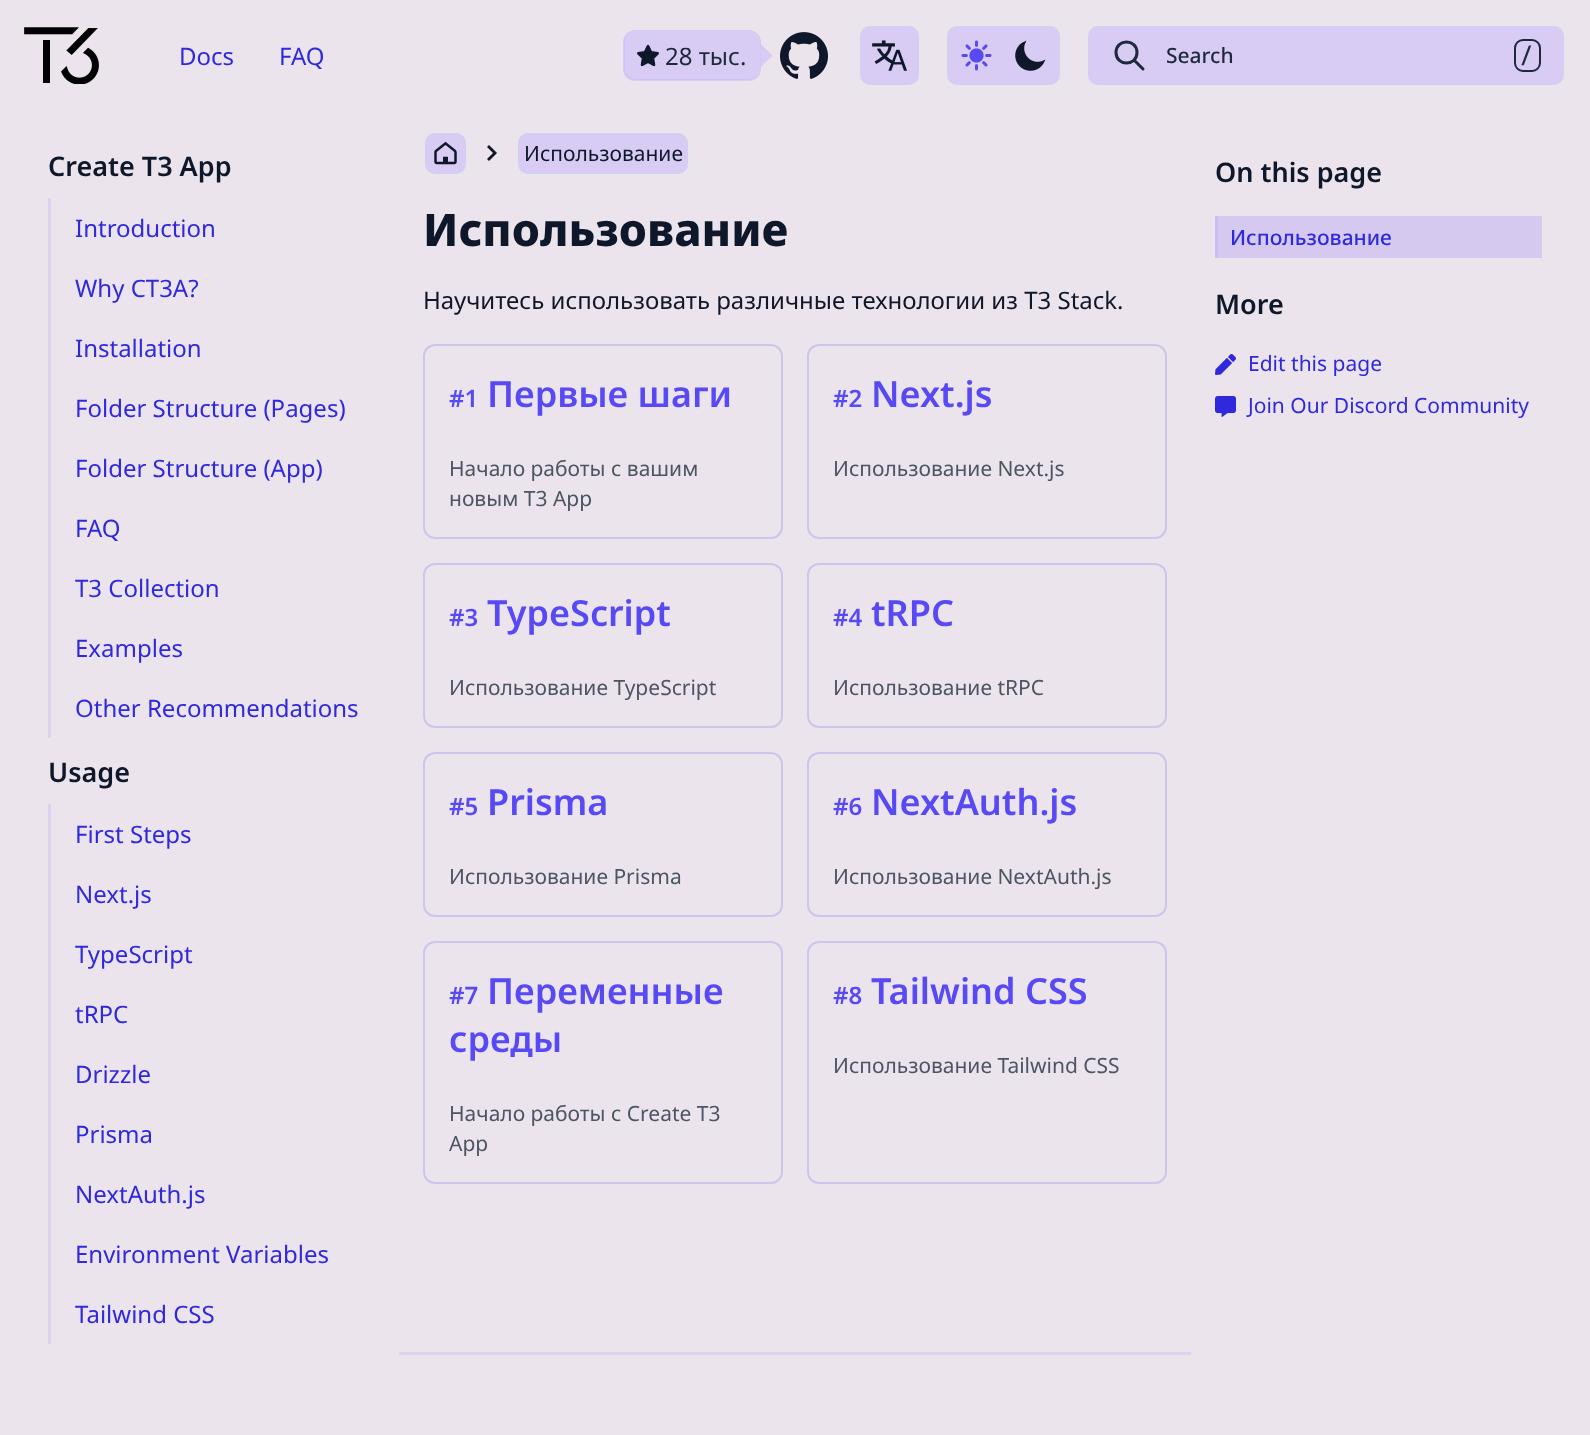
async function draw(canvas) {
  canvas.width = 1590;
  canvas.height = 1435;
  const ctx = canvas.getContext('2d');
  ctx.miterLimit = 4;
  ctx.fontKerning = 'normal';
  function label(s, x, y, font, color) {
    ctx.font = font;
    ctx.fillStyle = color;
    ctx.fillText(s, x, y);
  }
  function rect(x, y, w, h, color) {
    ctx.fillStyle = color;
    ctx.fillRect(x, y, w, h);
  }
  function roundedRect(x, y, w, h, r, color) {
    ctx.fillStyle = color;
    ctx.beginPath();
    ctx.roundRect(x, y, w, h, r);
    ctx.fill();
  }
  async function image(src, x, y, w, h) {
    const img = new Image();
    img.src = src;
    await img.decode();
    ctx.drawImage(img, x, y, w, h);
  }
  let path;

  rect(0, 0, 1590, 1435, '#ece4ec');
  await image('assets/img1.png', 24, 27, 75, 57);
  label('Docs', 179, 65, '24px Noto Sans', '#3029db');
  label('FAQ', 279, 65, '24px Noto Sans', '#3029db');
  roundedRect(624, 32, 135, 48, 11, '#d8ccf4');
  ctx.beginPath();
  ctx.roundRect(624, 31, 136, 49, 11);
  ctx.strokeStyle = '#c3b4fc80';
  ctx.lineWidth = 2;
  ctx.stroke();
  await image('assets/img2.png', 637, 44, 22, 23);
  label('28 тыс.', 665, 65, '24px Noto Sans', '#1e293b');
  ctx.fillStyle = '#c3b4fc80';
  path = new Path2D('M760.5 67.5V43.5L772.5 55.5Z');
  ctx.fill(path);
  await image('assets/img3.png', 780, 32, 48, 47);
  ctx.fillStyle = '#d8ccf4';
  ctx.beginPath();
  ctx.roundRect(859, 25, 61, 61, 11);
  ctx.fill();
  ctx.strokeStyle = '#e5e7eb';
  ctx.stroke();
  await image('assets/img4.png', 872, 40, 35, 31);
  ctx.beginPath();
  ctx.roundRect(946, 25, 115, 61, 11);
  ctx.fill();
  ctx.stroke();
  await image('assets/img5.png', 961, 40, 31, 31);
  await image('assets/img6.png', 1015, 40, 31, 31);
  ctx.beginPath();
  ctx.roundRect(1087, 25, 478, 61, 11);
  ctx.fill();
  ctx.stroke();
  path = new Path2D('M1143 69L1134 60M1137 52.5C1137 66.5 1116 66.5 1116 52.5C1116 38.5 1137 38.5 1137 52.5Z');
  ctx.strokeStyle = '#1e293b';
  ctx.lineWidth = 3;
  ctx.lineCap = 'round';
  ctx.lineJoin = 'round';
  ctx.stroke(path);
  label('Search', 1166, 63, '500 21px Noto Sans', '#1e293b');
  ctx.beginPath();
  ctx.roundRect(1515, 40, 25, 31, 8);
  ctx.lineWidth = 2;
  ctx.lineJoin = 'miter';
  ctx.stroke();
  label('/', 1520, 63, '500 21px JetBrains Mono', '#1e293b');
  label('Create T3 App', 48, 176, '600 27px Noto Sans', '#0f172a');
  rect(48, 198, 3, 540, '#dcd2ef');
  label('Introduction', 75, 237, '24px Noto Sans', '#3029db');
  label('Why CT3A?', 75, 297, '24px Noto Sans', '#3029db');
  label('Installation', 75, 357, '24px Noto Sans', '#3029db');
  label('Folder Structure (Pages)', 75, 417, '24px Noto Sans', '#3029db');
  label('Folder Structure (App)', 75, 477, '24px Noto Sans', '#3029db');
  label('FAQ', 75, 537, '24px Noto Sans', '#3029db');
  label('T3 Collection', 75, 597, '24px Noto Sans', '#3029db');
  label('Examples', 75, 657, '24px Noto Sans', '#3029db');
  label('Other Recommendations', 75, 717, '24px Noto Sans', '#3029db');
  label('Usage', 48, 782, '600 27px Noto Sans', '#0f172a');
  rect(48, 804, 3, 540, '#dcd2ef');
  label('First Steps', 75, 843, '24px Noto Sans', '#3029db');
  label('Next.js', 75, 903, '24px Noto Sans', '#3029db');
  label('TypeScript', 75, 963, '24px Noto Sans', '#3029db');
  label('tRPC', 75, 1023, '24px Noto Sans', '#3029db');
  label('Drizzle', 75, 1083, '24px Noto Sans', '#3029db');
  label('Prisma', 75, 1143, '24px Noto Sans', '#3029db');
  label('NextAuth.js', 75, 1203, '24px Noto Sans', '#3029db');
  label('Environment Variables', 75, 1263, '24px Noto Sans', '#3029db');
  label('Tailwind CSS', 75, 1323, '24px Noto Sans', '#3029db');
  ctx.fillStyle = '#d8ccf4';
  ctx.beginPath();
  ctx.roundRect(424, 132, 43, 43, 11);
  ctx.fill();
  ctx.strokeStyle = '#e5e7eb';
  ctx.stroke();
  await image('assets/img7.png', 434, 141, 23, 24);
  await image('assets/img8.png', 487, 145, 10, 16);
  ctx.beginPath();
  ctx.roundRect(517, 132, 172, 43, 11);
  ctx.fill();
  ctx.stroke();
  label('Использование', 524, 161, '21px Noto Sans', '#0f172a');
  label('Использование', 423, 246, '800 45px Noto Sans', '#0f172a');
  label('Научитесь использовать различные технологии из T3 Stack.', 423, 309, '24px Noto Sans', '#0f172a');
  ctx.beginPath();
  ctx.roundRect(424, 345, 358, 193, 11);
  ctx.strokeStyle = '#cec5ed';
  ctx.stroke();
  label('#1', 449, 407, '600 24px Noto Sans', '#5749f3');
  label('Первые шаги', 487, 407, '600 36px Noto Sans', '#5749f3');
  label('Начало работы с вашим', 449, 476, '21px Noto Sans', '#4b5563');
  label('новым T3 App', 449, 506, '21px Noto Sans', '#4b5563');
  ctx.beginPath();
  ctx.roundRect(808, 345, 358, 193, 11);
  ctx.stroke();
  label('#2', 833, 407, '600 24px Noto Sans', '#5749f3');
  label('Next.js', 871, 407, '600 36px Noto Sans', '#5749f3');
  label('Использование Next.js', 833, 476, '21px Noto Sans', '#4b5563');
  ctx.beginPath();
  ctx.roundRect(424, 564, 358, 163, 11);
  ctx.stroke();
  label('#3', 449, 626, '600 24px Noto Sans', '#5749f3');
  label('TypeScript', 487, 626, '600 36px Noto Sans', '#5749f3');
  label('Использование TypeScript', 449, 695, '21px Noto Sans', '#4b5563');
  ctx.beginPath();
  ctx.roundRect(808, 564, 358, 163, 11);
  ctx.stroke();
  label('#4', 833, 626, '600 24px Noto Sans', '#5749f3');
  label('tRPC', 871, 626, '600 36px Noto Sans', '#5749f3');
  label('Использование tRPC', 833, 695, '21px Noto Sans', '#4b5563');
  ctx.beginPath();
  ctx.roundRect(424, 753, 358, 163, 11);
  ctx.stroke();
  label('#5', 449, 815, '600 24px Noto Sans', '#5749f3');
  label('Prisma', 487, 815, '600 36px Noto Sans', '#5749f3');
  label('Использование Prisma', 449, 884, '21px Noto Sans', '#4b5563');
  ctx.beginPath();
  ctx.roundRect(808, 753, 358, 163, 11);
  ctx.stroke();
  label('#6', 833, 815, '600 24px Noto Sans', '#5749f3');
  label('NextAuth.js', 871, 815, '600 36px Noto Sans', '#5749f3');
  label('Использование NextAuth.js', 833, 884, '21px Noto Sans', '#4b5563');
  ctx.beginPath();
  ctx.roundRect(424, 942, 358, 241, 11);
  ctx.stroke();
  label('#7', 449, 1004, '600 24px Noto Sans', '#5749f3');
  label('Переменные', 487, 1004, '600 36px Noto Sans', '#5749f3');
  label('среды', 449, 1052, '600 36px Noto Sans', '#5749f3');
  label('Начало работы с Create T3', 449, 1121, '21px Noto Sans', '#4b5563');
  label('App', 449, 1151, '21px Noto Sans', '#4b5563');
  ctx.beginPath();
  ctx.roundRect(808, 942, 358, 241, 11);
  ctx.stroke();
  label('#8', 833, 1004, '600 24px Noto Sans', '#5749f3');
  label('Tailwind CSS', 871, 1004, '600 36px Noto Sans', '#5749f3');
  label('Использование Tailwind CSS', 833, 1073, '21px Noto Sans', '#4b5563');
  rect(399, 1352, 792, 3, '#dcd2ef');
  label('On this page', 1215, 182, '600 27px Noto Sans', '#0f172a');
  rect(1218, 216, 324, 42, '#d5c9f0');
  rect(1215, 216, 3, 42, '#cabdf2');
  label('Использование', 1230, 245, '500 21px Noto Sans', '#3029db');
  label('More', 1215, 314, '600 27px Noto Sans', '#0f172a');
  await image('assets/img9.png', 1215, 354, 21, 21);
  label('Edit this page', 1248, 371, '21px Noto Sans', '#3029db');
  await image('assets/img10.png', 1215, 396, 21, 21);
  label('Join Our Discord Community', 1248, 413, '21px Noto Sans', '#3029db');
}

draw(document.querySelector('canvas'));
